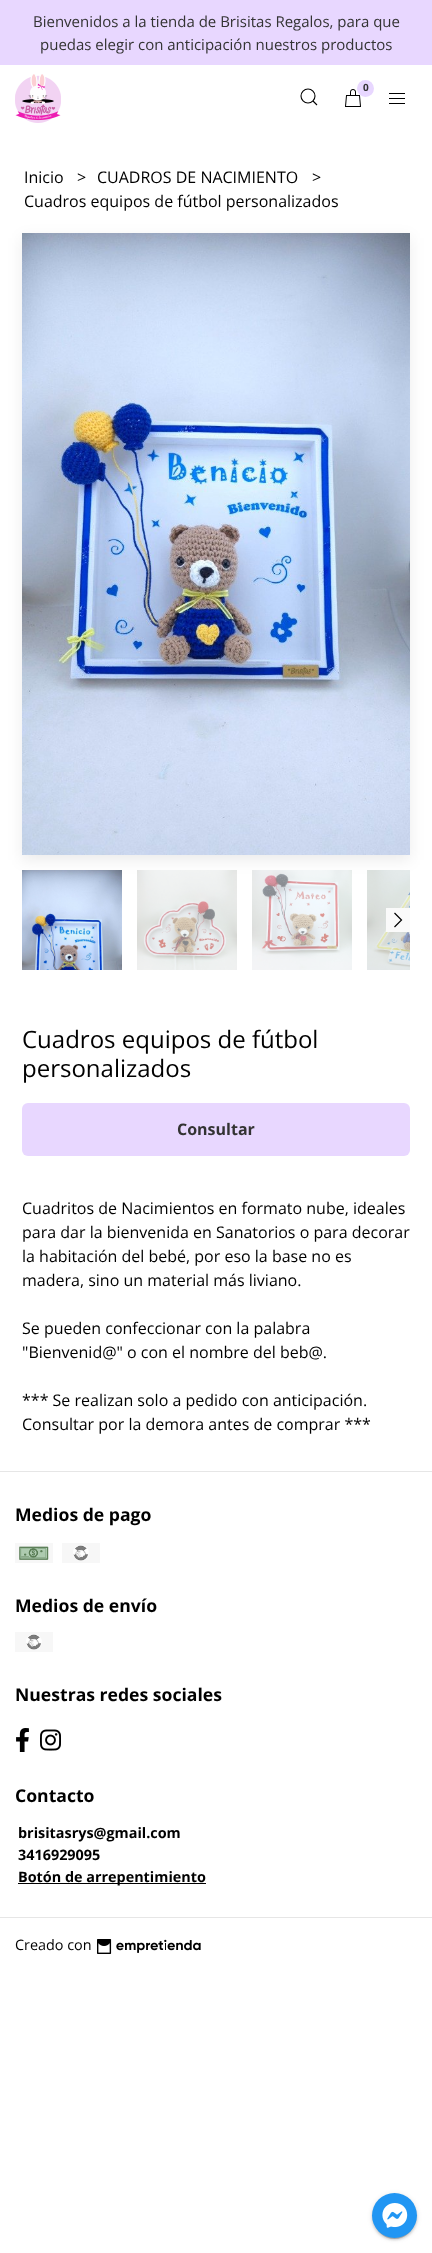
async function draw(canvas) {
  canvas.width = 432;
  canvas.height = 2253;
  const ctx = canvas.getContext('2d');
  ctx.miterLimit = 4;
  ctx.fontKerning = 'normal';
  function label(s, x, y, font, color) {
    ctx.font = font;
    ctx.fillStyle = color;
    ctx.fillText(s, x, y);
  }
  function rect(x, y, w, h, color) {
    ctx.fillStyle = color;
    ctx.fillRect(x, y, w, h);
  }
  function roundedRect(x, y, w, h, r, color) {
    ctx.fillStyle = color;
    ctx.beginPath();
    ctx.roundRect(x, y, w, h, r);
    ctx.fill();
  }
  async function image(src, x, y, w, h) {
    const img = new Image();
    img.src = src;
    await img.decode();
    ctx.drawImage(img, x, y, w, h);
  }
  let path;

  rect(0, 0, 432, 2253, '#fff');
  rect(0, 0, 432, 65, '#e8d7ff');
  label('Bienvenidos a la tienda de Brisitas Regalos, para que', 33, 27, '15px Open Sans', '#333');
  label('puedas elegir con anticipación nuestros productos', 40, 50, '15px Open Sans', '#333');
  await image('assets/img1.png', 15, 74, 46, 49);
  ctx.beginPath();
  ctx.arc(308, 96, 7, 0, 2 * Math.PI);
  ctx.strokeStyle = '#000';
  ctx.lineWidth = 1.1;
  ctx.stroke();
  path = new Path2D('M313 101L317 105Z');
  ctx.stroke(path);
  await image('assets/img2.png', 345, 89, 16, 18);
  ctx.fillStyle = '#e8d7ff';
  ctx.beginPath();
  ctx.arc(365.5, 88.5, 8.5, 0, 2 * Math.PI);
  ctx.fill();
  label('0', 363, 91, 'bold 10px Open Sans', '#333');
  rect(389, 93, 16, 1, '#000');
  rect(389, 98, 16, 1, '#000');
  rect(389, 103, 16, 1, '#000');
  label('Inicio', 24, 183, '16px Open Sans', '#000');
  label('>', 77, 183, '16px Open Sans', '#000');
  label('CUADROS DE NACIMIENTO', 97, 183, '16px Open Sans', '#000');
  label('>', 312, 183, '16px Open Sans', '#000');
  label('Cuadros equipos de fútbol personalizados', 24, 207, '16px Open Sans', '#000');
  ctx.fillStyle = '#00000014';
  ctx.filter = 'blur(7.5px)';
  ctx.beginPath();
  ctx.rect(22, 238, 388, 622);
  ctx.fill();
  ctx.filter = 'none';
  await image('assets/img3.png', 22, 233, 388, 622);
  await image('assets/img4.png', 22, 870, 100, 100);
  await image('assets/img5.png', 137, 870, 100, 100);
  await image('assets/img6.png', 252, 870, 100, 100);
  await image('assets/img7.png', 367, 870, 43, 100);
  rect(386, 908, 24, 24, '#fafafa');
  path = new Path2D('M394.5 913L401.5 920L394.5 927');
  ctx.lineWidth = 1.2;
  ctx.stroke(path);
  label('Cuadros equipos de fútbol', 22, 1048, '24px Open Sans', '#000');
  label('personalizados', 22, 1077, '24px Open Sans', '#000');
  roundedRect(22, 1103, 388, 53, 6, '#e8d7ff');
  label('Consultar', 177, 1135, 'bold 16px Open Sans', '#333');
  label('Cuadritos de Nacimientos en formato nube, ideales', 22, 1214, '16px Open Sans', '#000');
  label('para dar la bienvenida en Sanatorios o para decorar', 22, 1238, '16px Open Sans', '#000');
  label('la habitación del bebé, por eso la base no es', 22, 1262, '16px Open Sans', '#000');
  label('madera, sino un material más liviano.', 22, 1286, '16px Open Sans', '#000');
  label('Se pueden confeccionar con la palabra', 22, 1334, '16px Open Sans', '#000');
  label('"Bienvenid@" o con el nombre del beb@.', 22, 1358, '16px Open Sans', '#000');
  label('*** Se realizan solo a pedido con anticipación.', 22, 1406, '16px Open Sans', '#000');
  label('Consultar por la demora antes de comprar ***', 22, 1430, '16px Open Sans', '#000');
  rect(0, 1471, 432, 1, '#e6e6e6');
  label('Medios de pago', 15, 1521, 'bold 17.6px Open Sans', '#000');
  await image('assets/img8.png', 15, 1543, 38, 20);
  await image('assets/img9.png', 62, 1543, 38, 20);
  label('Medios de envío', 15, 1612, 'bold 17.6px Open Sans', '#000');
  await image('assets/img10.png', 15, 1632, 38, 20);
  label('Nuestras redes sociales', 15, 1701, 'bold 17.6px Open Sans', '#000');
  await image('assets/img11.png', 16, 1728, 13, 24);
  await image('assets/img12.png', 40, 1729, 21, 22);
  label('Contacto', 15, 1802, 'bold 17.6px Open Sans', '#000');
  label('brisitasrys@gmail.com', 18, 1838, 'bold 14.4px Open Sans', '#000');
  label('3416929095', 18, 1860, 'bold 14.4px Open Sans', '#000');
  rect(18, 1883, 188, 1, '#000');
  label('Botón de arrepentimiento', 18, 1882, 'bold 14.4px Open Sans', '#000');
  rect(0, 1917, 432, 1, '#e6e6e6');
  label('Creado con', 15, 1950, '14.4px Open Sans', '#000');
  await image('assets/img13.png', 97, 1939, 104, 15);
  ctx.fillStyle = '#00000033';
  ctx.filter = 'blur(0.5px)';
  ctx.beginPath();
  ctx.roundRect(374, 2198, 41, 41, 20.5);
  ctx.fill();
  ctx.filter = 'none';
  ctx.fillStyle = '#0000001f';
  ctx.filter = 'blur(2.5px)';
  ctx.beginPath();
  ctx.roundRect(372, 2194, 45, 45, 22.5);
  ctx.fill();
  ctx.filter = 'none';
  ctx.fillStyle = '#00000024';
  ctx.filter = 'blur(1px)';
  ctx.beginPath();
  ctx.roundRect(372, 2195, 45, 45, 22.5);
  ctx.fill();
  ctx.filter = 'none';
  ctx.fillStyle = '#2196f3';
  ctx.beginPath();
  ctx.arc(394.5, 2215.5, 22.5, 0, 2 * Math.PI);
  ctx.fill();
  await image('assets/img14.png', 382, 2203, 26, 25);
}

draw(document.querySelector('canvas'));
